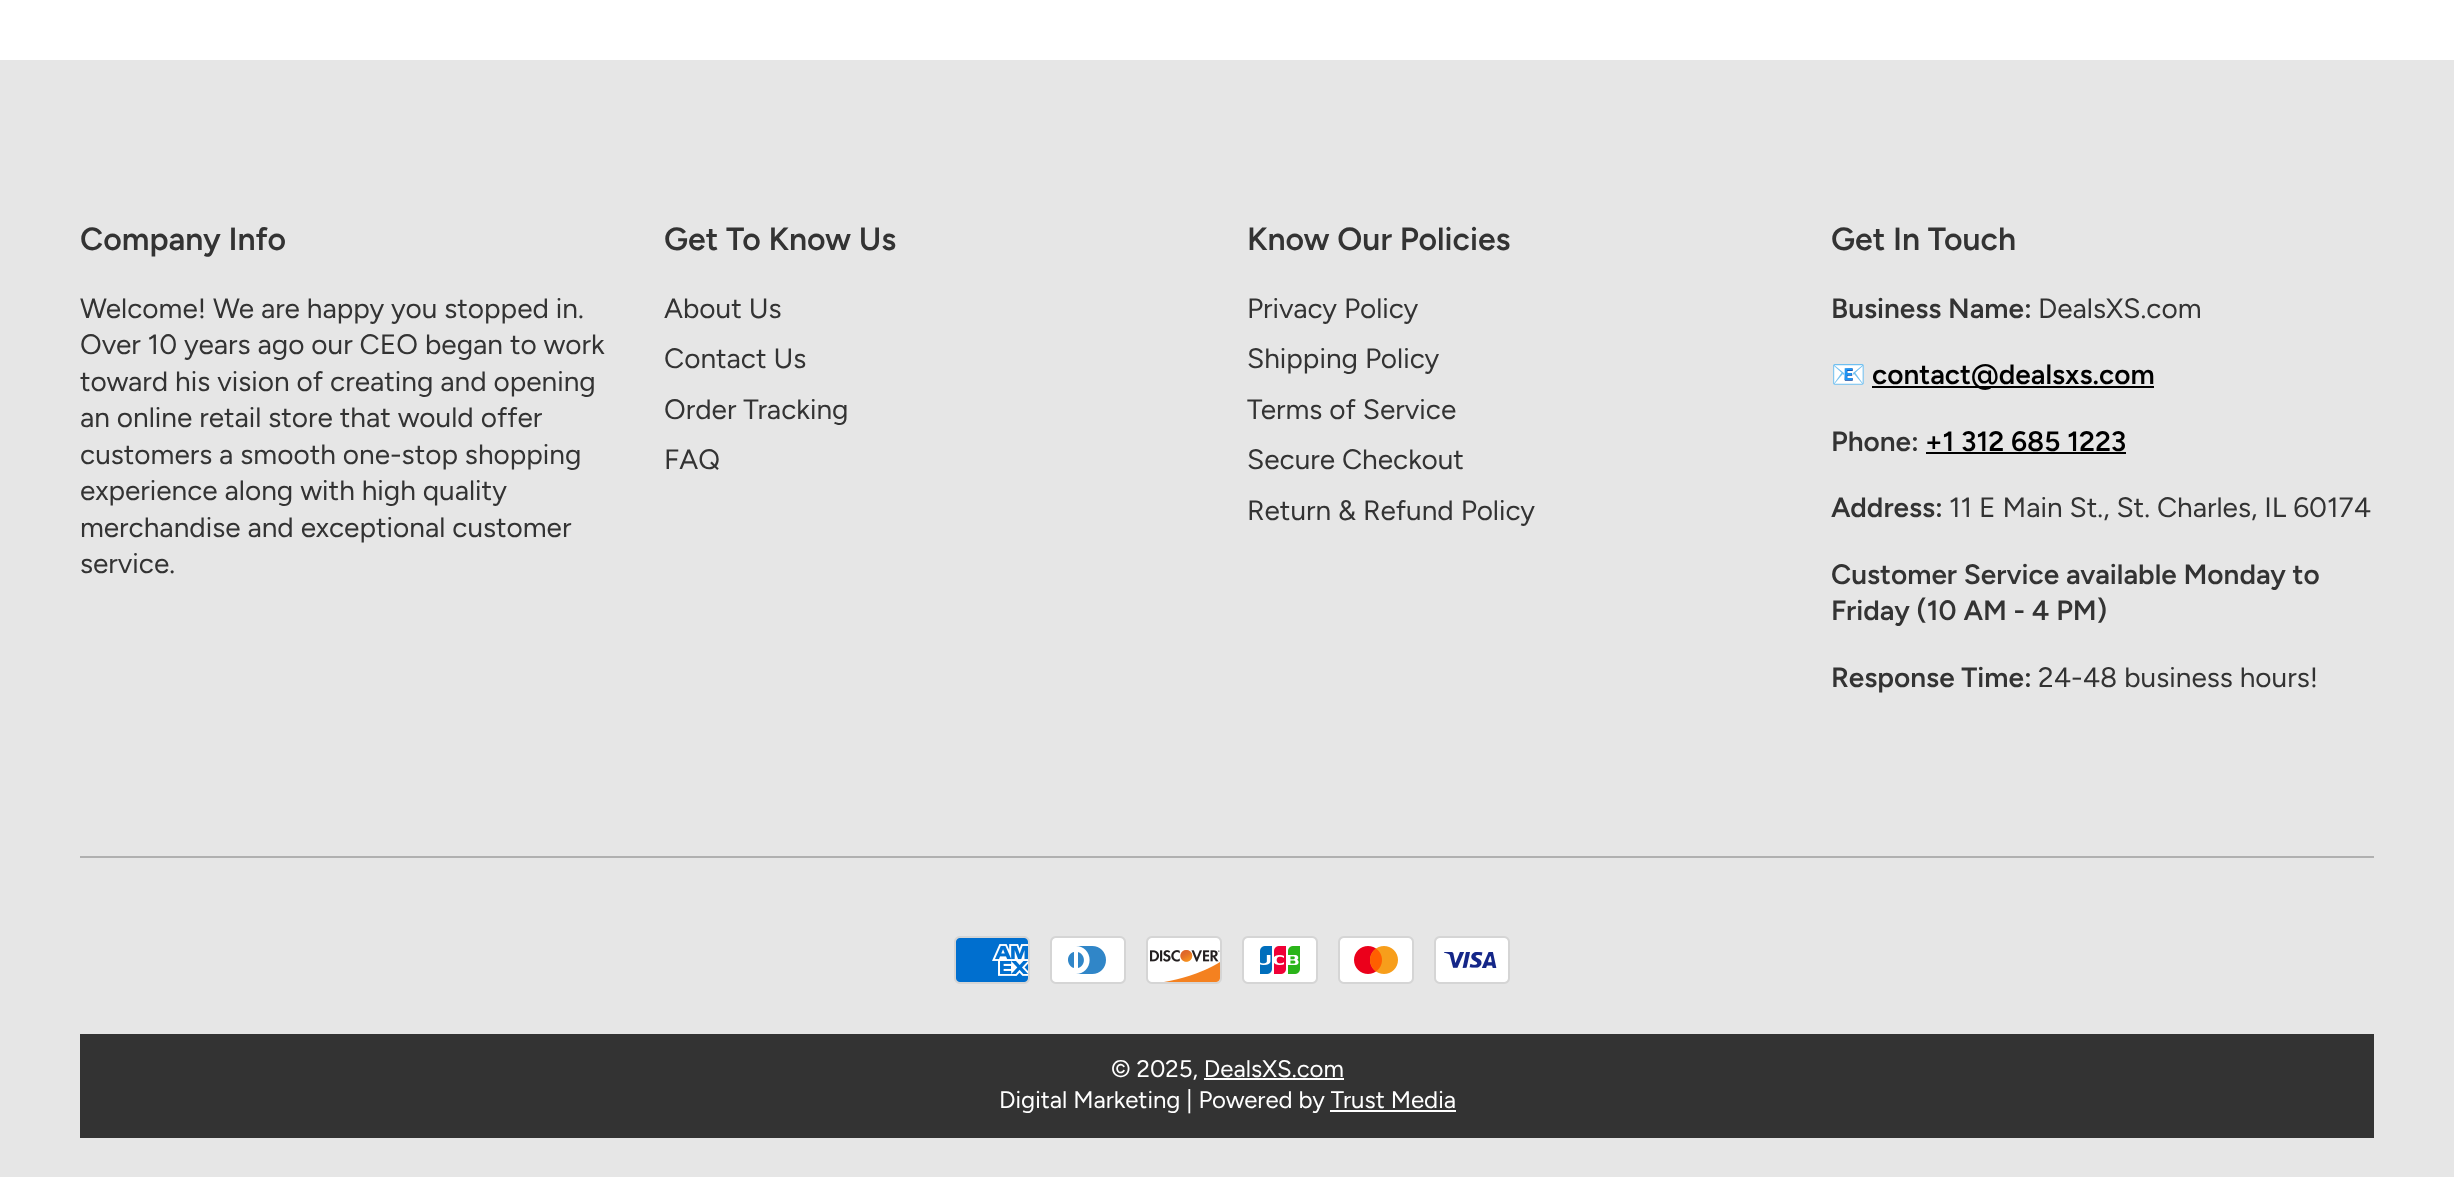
async function draw(canvas) {
  canvas.width = 2454;
  canvas.height = 1177;
  const ctx = canvas.getContext('2d');
  ctx.miterLimit = 4;
  ctx.fontKerning = 'normal';
  function label(s, x, y, font, color) {
    ctx.font = font;
    ctx.fillStyle = color;
    ctx.fillText(s, x, y);
  }
  function rect(x, y, w, h, color) {
    ctx.fillStyle = color;
    ctx.fillRect(x, y, w, h);
  }
  async function image(src, x, y, w, h) {
    const img = new Image();
    img.src = src;
    await img.decode();
    ctx.drawImage(img, x, y, w, h);
  }

  rect(0, 0, 2454, 1177, '#fff');
  rect(0, 60, 2454, 1117, '#e6e6e6');
  label('Company Info', 80, 250, '600 32px Figtree', '#333');
  label('Welcome! We are happy you stopped in.', 80, 318, '28px Figtree', '#333');
  label('Over 10 years ago our CEO began to work', 80, 354, '28px Figtree', '#333');
  label('toward his vision of creating and opening', 80, 391, '28px Figtree', '#333');
  label('an online retail store that would offer', 80, 427, '28px Figtree', '#333');
  label('customers a smooth one-stop shopping', 80, 464, '28px Figtree', '#333');
  label('experience along with high quality', 80, 500, '28px Figtree', '#333');
  label('merchandise and exceptional customer', 80, 537, '28px Figtree', '#333');
  label('service.', 80, 573, '28px Figtree', '#333');
  label('Get To Know Us', 664, 250, '600 32px Figtree', '#333');
  label('About Us', 664, 318, '28px Figtree', '#333');
  label('Contact Us', 664, 368, '28px Figtree', '#333');
  label('Order Tracking', 664, 419, '28px Figtree', '#333');
  label('FAQ', 664, 469, '28px Figtree', '#333');
  label('Know Our Policies', 1247, 250, '600 32px Figtree', '#333');
  label('Privacy Policy', 1247, 318, '28px Figtree', '#333');
  label('Shipping Policy', 1247, 368, '28px Figtree', '#333');
  label('Terms of Service', 1247, 419, '28px Figtree', '#333');
  label('Secure Checkout', 1247, 469, '28px Figtree', '#333');
  label('Return & Refund Policy', 1247, 520, '28px Figtree', '#333');
  label('Get In Touch', 1831, 250, '600 32px Figtree', '#333');
  label('Business Name:', 1831, 318, '600 28px Figtree', '#333');
  label('DealsXS.com', 2038, 318, '28px Figtree', '#333');
  label('📧', 1831, 384, '28px Noto Color Emoji', '#333');
  rect(1872, 386, 282, 2, '#000');
  label('contact@dealsxs.com', 1872, 384, '600 28px Figtree', '#000');
  label('Phone:', 1831, 451, '600 28px Figtree', '#333');
  label('+1 312 685 1223', 1925, 451, '600 28px Figtree', '#000');
  rect(1926, 452, 200, 2, '#000');
  label('Address:', 1831, 517, '600 28px Figtree', '#333');
  label('11 E Main St., St. Charles, IL 60174', 1949, 517, '28px Figtree', '#333');
  label('Customer Service available Monday to', 1831, 584, '600 28px Figtree', '#333');
  label('Friday (10 AM - 4 PM)', 1831, 620, '600 28px Figtree', '#333');
  label('Response Time:', 1831, 687, '600 28px Figtree', '#333');
  label('24-48 business hours!', 2038, 687, '28px Figtree', '#333');
  rect(80, 856, 2294, 2, '#b0b0b0');
  await image('assets/img1.png', 954, 936, 76, 48);
  await image('assets/img2.png', 1050, 936, 76, 48);
  await image('assets/img3.png', 1146, 936, 76, 48);
  await image('assets/img4.png', 1242, 936, 76, 48);
  await image('assets/img5.png', 1338, 936, 76, 48);
  await image('assets/img6.png', 1434, 936, 76, 48);
  rect(80, 1034, 2294, 104, '#333');
  label('© 2025, DealsXS.com', 1111, 1077, '24px Figtree', '#fff');
  rect(1204, 1078, 140, 2, '#fff');
  label('Digital Marketing | Powered by Trust Media', 999, 1108, '24px Figtree', '#fff');
  rect(1330, 1110, 126, 2, '#fff');
}

draw(document.querySelector('canvas'));
